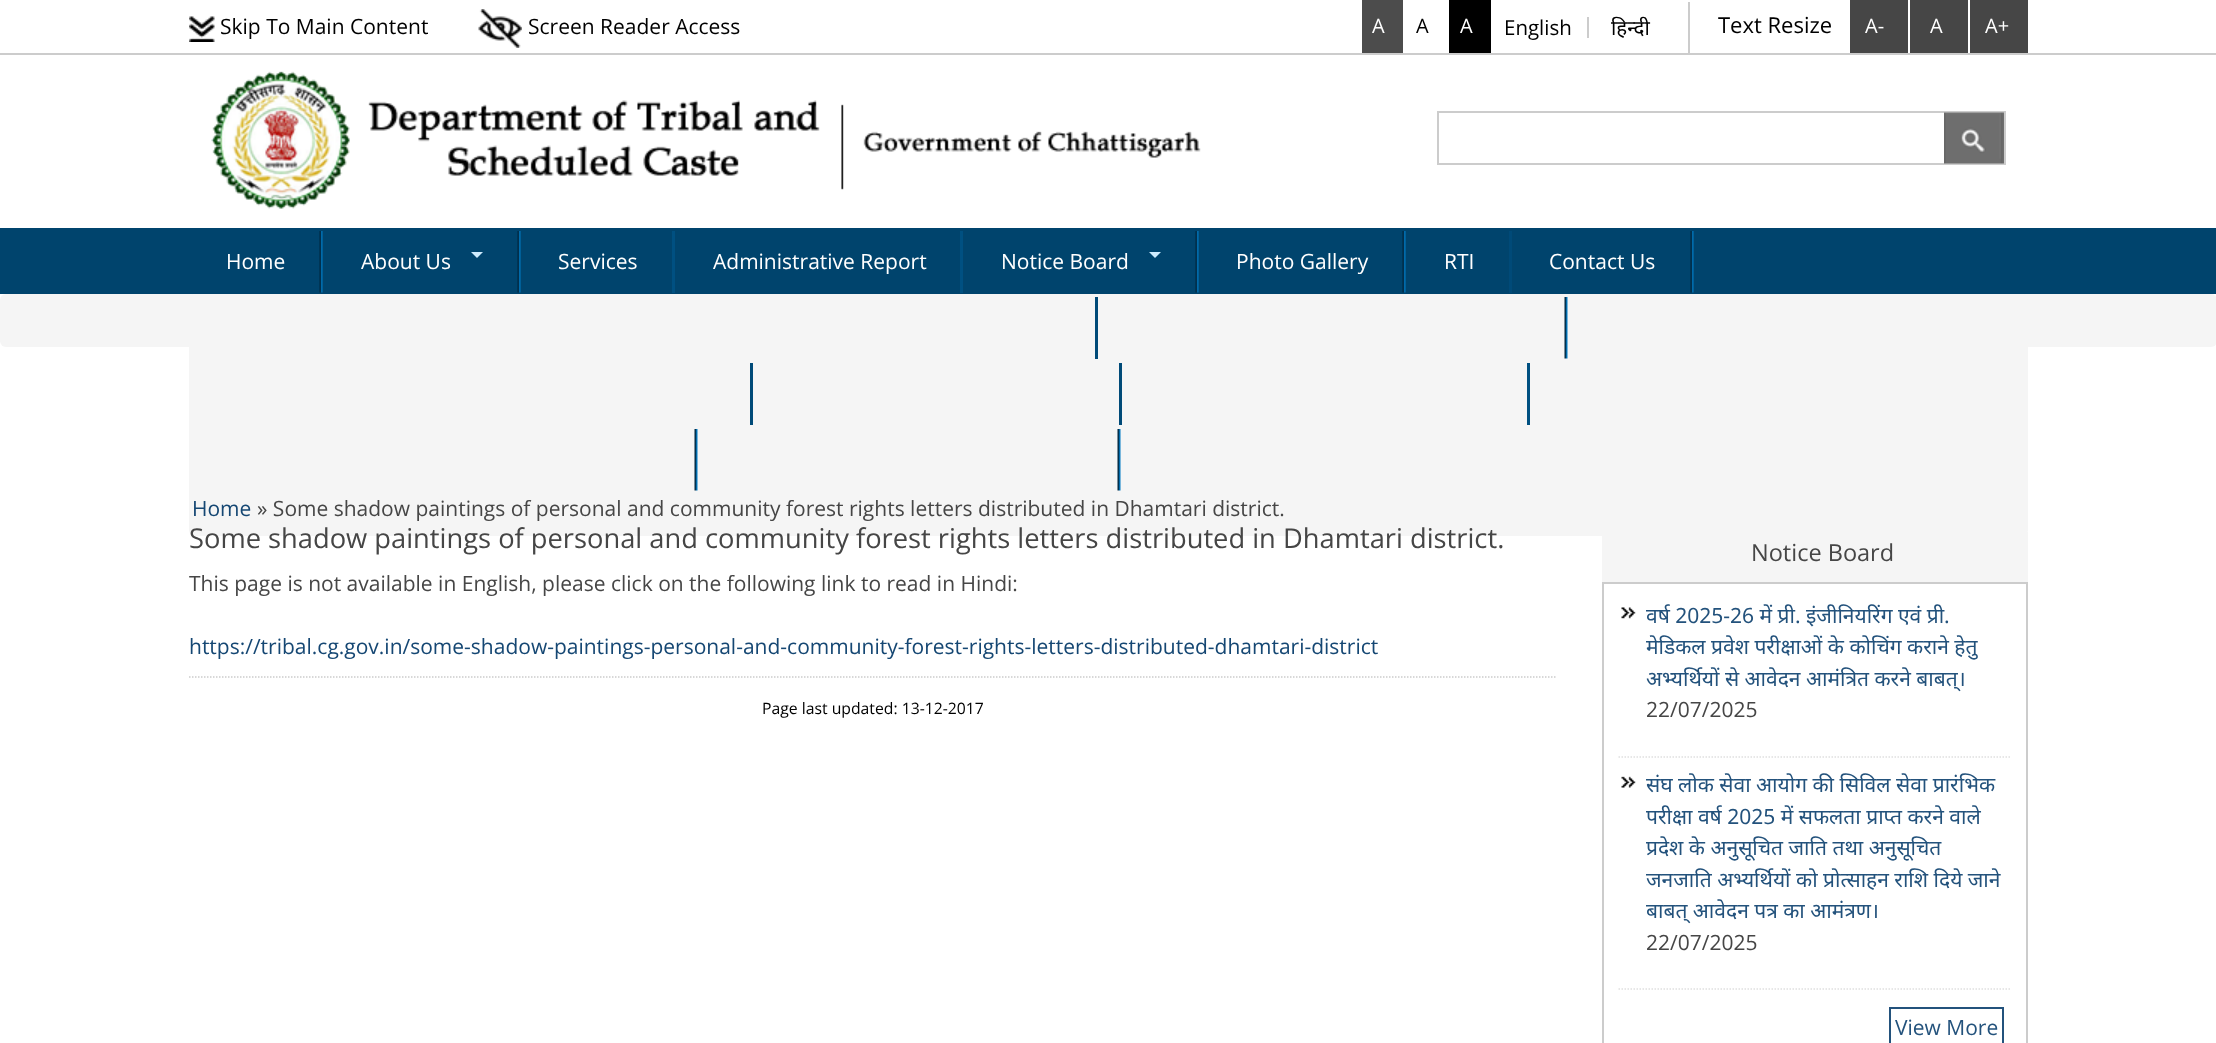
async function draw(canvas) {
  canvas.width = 2216;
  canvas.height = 1043;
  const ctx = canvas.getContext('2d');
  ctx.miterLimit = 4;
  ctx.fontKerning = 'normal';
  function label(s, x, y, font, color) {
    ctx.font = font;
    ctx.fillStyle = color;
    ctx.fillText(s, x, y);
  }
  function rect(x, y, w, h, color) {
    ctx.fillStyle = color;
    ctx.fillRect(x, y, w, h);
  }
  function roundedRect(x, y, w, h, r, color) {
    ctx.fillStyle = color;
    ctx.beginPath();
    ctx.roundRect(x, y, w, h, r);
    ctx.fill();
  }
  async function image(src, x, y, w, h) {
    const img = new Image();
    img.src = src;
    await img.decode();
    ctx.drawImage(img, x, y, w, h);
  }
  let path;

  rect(0, 0, 2216, 1043, '#fff');
  rect(0, 53, 2216, 2, '#ccc');
  await image('assets/img1.png', 189, 16, 26, 26);
  label('Skip To Main Content', 220, 34, '21px Open Sans', '#000');
  await image('assets/img2.png', 478, 9, 44, 39);
  label('Screen Reader Access', 528, 34, '21px Open Sans', '#000');
  rect(1362, 0, 41, 53, '#4c4c4c');
  label('A', 1372, 33, '20px Open Sans', '#fff');
  label('A', 1416, 33, '20px Open Sans', '#000');
  rect(1449, 0, 42, 53, '#000');
  label('A', 1460, 33, '20px Open Sans', '#fff');
  rect(1688, 2, 2, 51, '#ccc');
  rect(1587, 17, 2, 21, '#ccc');
  label('English', 1504, 35, '20.5px Open Sans', '#000');
  label('हिन्दी', 1611, 35, '20.5px Noto Sans', '#000');
  label('Text Resize', 1718, 33, '22px Open Sans', '#000');
  rect(1850, 0, 58, 53, '#464646');
  label('A-', 1865, 33, '20px Open Sans', '#fff');
  rect(1910, 0, 58, 53, '#464646');
  label('A', 1930, 33, '20px Open Sans', '#fff');
  rect(1970, 0, 58, 53, '#464646');
  label('A+', 1985, 33, '20px Open Sans', '#fff');
  await image('assets/img3.png', 211, 71, 990, 138);
  ctx.strokeStyle = '#ccc';
  ctx.lineWidth = 2;
  ctx.strokeRect(1438, 112, 567, 52);
  await image('assets/img4.png', 1944, 112, 60, 52);
  rect(0, 228, 2216, 66, '#00446d');
  await image('assets/img5.png', 319, 231, 4, 62);
  label('Home', 226, 269, '21px Open Sans', '#fff');
  await image('assets/img5.png', 517, 231, 4, 62);
  label('About Us', 361, 269, '21px Open Sans', '#fff');
  ctx.fillStyle = '#ceebfd';
  path = new Path2D('M471 252H483L477 258Z');
  ctx.fill(path);
  rect(672, 231, 3, 62, '#005081');
  label('Services', 558, 269, '21px Open Sans', '#fff');
  rect(960, 231, 3, 62, '#005081');
  label('Administrative Report', 713, 269, '21px Open Sans', '#fff');
  await image('assets/img5.png', 1195, 231, 4, 62);
  label('Notice Board', 1001, 269, '21px Open Sans', '#fff');
  ctx.fillStyle = '#ceebfd';
  path = new Path2D('M1149 252H1161L1155 258Z');
  ctx.fill(path);
  await image('assets/img5.png', 1402, 231, 4, 62);
  label('Photo Gallery', 1236, 269, '21px Open Sans', '#fff');
  rect(1509, 231, 3, 62, '#004a78');
  label('RTI', 1444, 269, '21px Open Sans', '#fff');
  await image('assets/img5.png', 1690, 231, 4, 62);
  label('Contact Us', 1549, 269, '21px Open Sans', '#fff');
  roundedRect(0, 294, 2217, 53, 6, '#f5f5f5');
  roundedRect(189, 294, 1839, 242, 6, '#f5f5f5');
  rect(1095, 297, 3, 62, '#004a78');
  await image('assets/img6.png', 1564, 297, 4, 62);
  rect(750, 363, 3, 62, '#004a78');
  rect(1119, 363, 3, 62, '#004a78');
  rect(1527, 363, 3, 62, '#005081');
  await image('assets/img6.png', 694, 429, 4, 62);
  await image('assets/img6.png', 1117, 429, 4, 62);
  label('Home', 192, 516, '21px Open Sans', '#154773');
  label('» Some shadow paintings of personal and community forest rights letters distributed in Dhamtari district.', 257, 516, '21px Open Sans', '#464646');
  label('Some shadow paintings of personal and community forest rights letters distributed in Dhamtari district.', 189, 548, '27.3px Open Sans', '#464646');
  label('This page is not available in English, please click on the following link to read in Hindi:', 189, 591, '21px Open Sans', '#464646');
  label('https://tribal.cg.gov.in/some-shadow-paintings-personal-and-community-forest-rights-letters-distributed-dhamtari-district', 189, 654, '21px Open Sans', '#154773');
  path = new Path2D('M189 677H1557');
  ctx.lineWidth = 1.5;
  ctx.setLineDash([1.5, 1.5]);
  ctx.stroke(path);
  label('Page last updated: 13-12-2017', 762, 714, '15.75px Open Sans', '#000');
  rect(1602, 532, 426, 50, '#f5f5f5');
  label('Notice Board', 1751, 561, '23.5px Open Sans', '#464646');
  ctx.lineWidth = 2;
  ctx.setLineDash([]);
  ctx.strokeRect(1603, 583, 424, 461);
  await image('assets/img7.png', 1621, 607, 15, 12);
  path = new Path2D('M1618.5 757H2011.5');
  ctx.strokeStyle = '#e0dfdf';
  ctx.lineWidth = 1.5;
  ctx.setLineDash([1.5, 1.5]);
  ctx.stroke(path);
  label('वर्ष 2025-26 में प्री. इंजीनियरिंग एवं प्री.', 1646, 623, '21px Noto Sans', '#23527c');
  label('मेडिकल प्रवेश परीक्षाओं के कोचिंग कराने हेतु', 1646, 654, '21px Noto Sans', '#23527c');
  label('अभ्यर्थियों से आवेदन आमंत्रित करने बाबत्।', 1646, 686, '21px Noto Sans', '#23527c');
  label('22/07/2025', 1646, 717, '21px Open Sans', '#464646');
  await image('assets/img8.png', 1621, 776, 15, 12);
  path = new Path2D('M1618.5 989H2011.5');
  ctx.stroke(path);
  label('संघ लोक सेवा आयोग की सिविल सेवा प्रारंभिक', 1646, 792, '21px Noto Sans', '#23527c');
  label('परीक्षा वर्ष 2025 में सफलता प्राप्त करने वाले', 1646, 824, '21px Noto Sans', '#23527c');
  label('प्रदेश के अनुसूचित जाति तथा अनुसूचित', 1646, 855, '21px Noto Sans', '#23527c');
  label('जनजाति अभ्यर्थियों को प्रोत्साहन राशि दिये जाने', 1646, 887, '21px Noto Sans', '#23527c');
  label('बाबत् आवेदन पत्र का आमंत्रण।', 1646, 918, '21px Noto Sans', '#23527c');
  label('22/07/2025', 1646, 950, '21px Open Sans', '#464646');
  ctx.strokeStyle = '#23527c';
  ctx.lineWidth = 2;
  ctx.setLineDash([]);
  ctx.strokeRect(1890, 1008, 113, 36);
  label('View More', 1895, 1035, '21px Open Sans', '#23527c');
}

draw(document.querySelector('canvas'));
